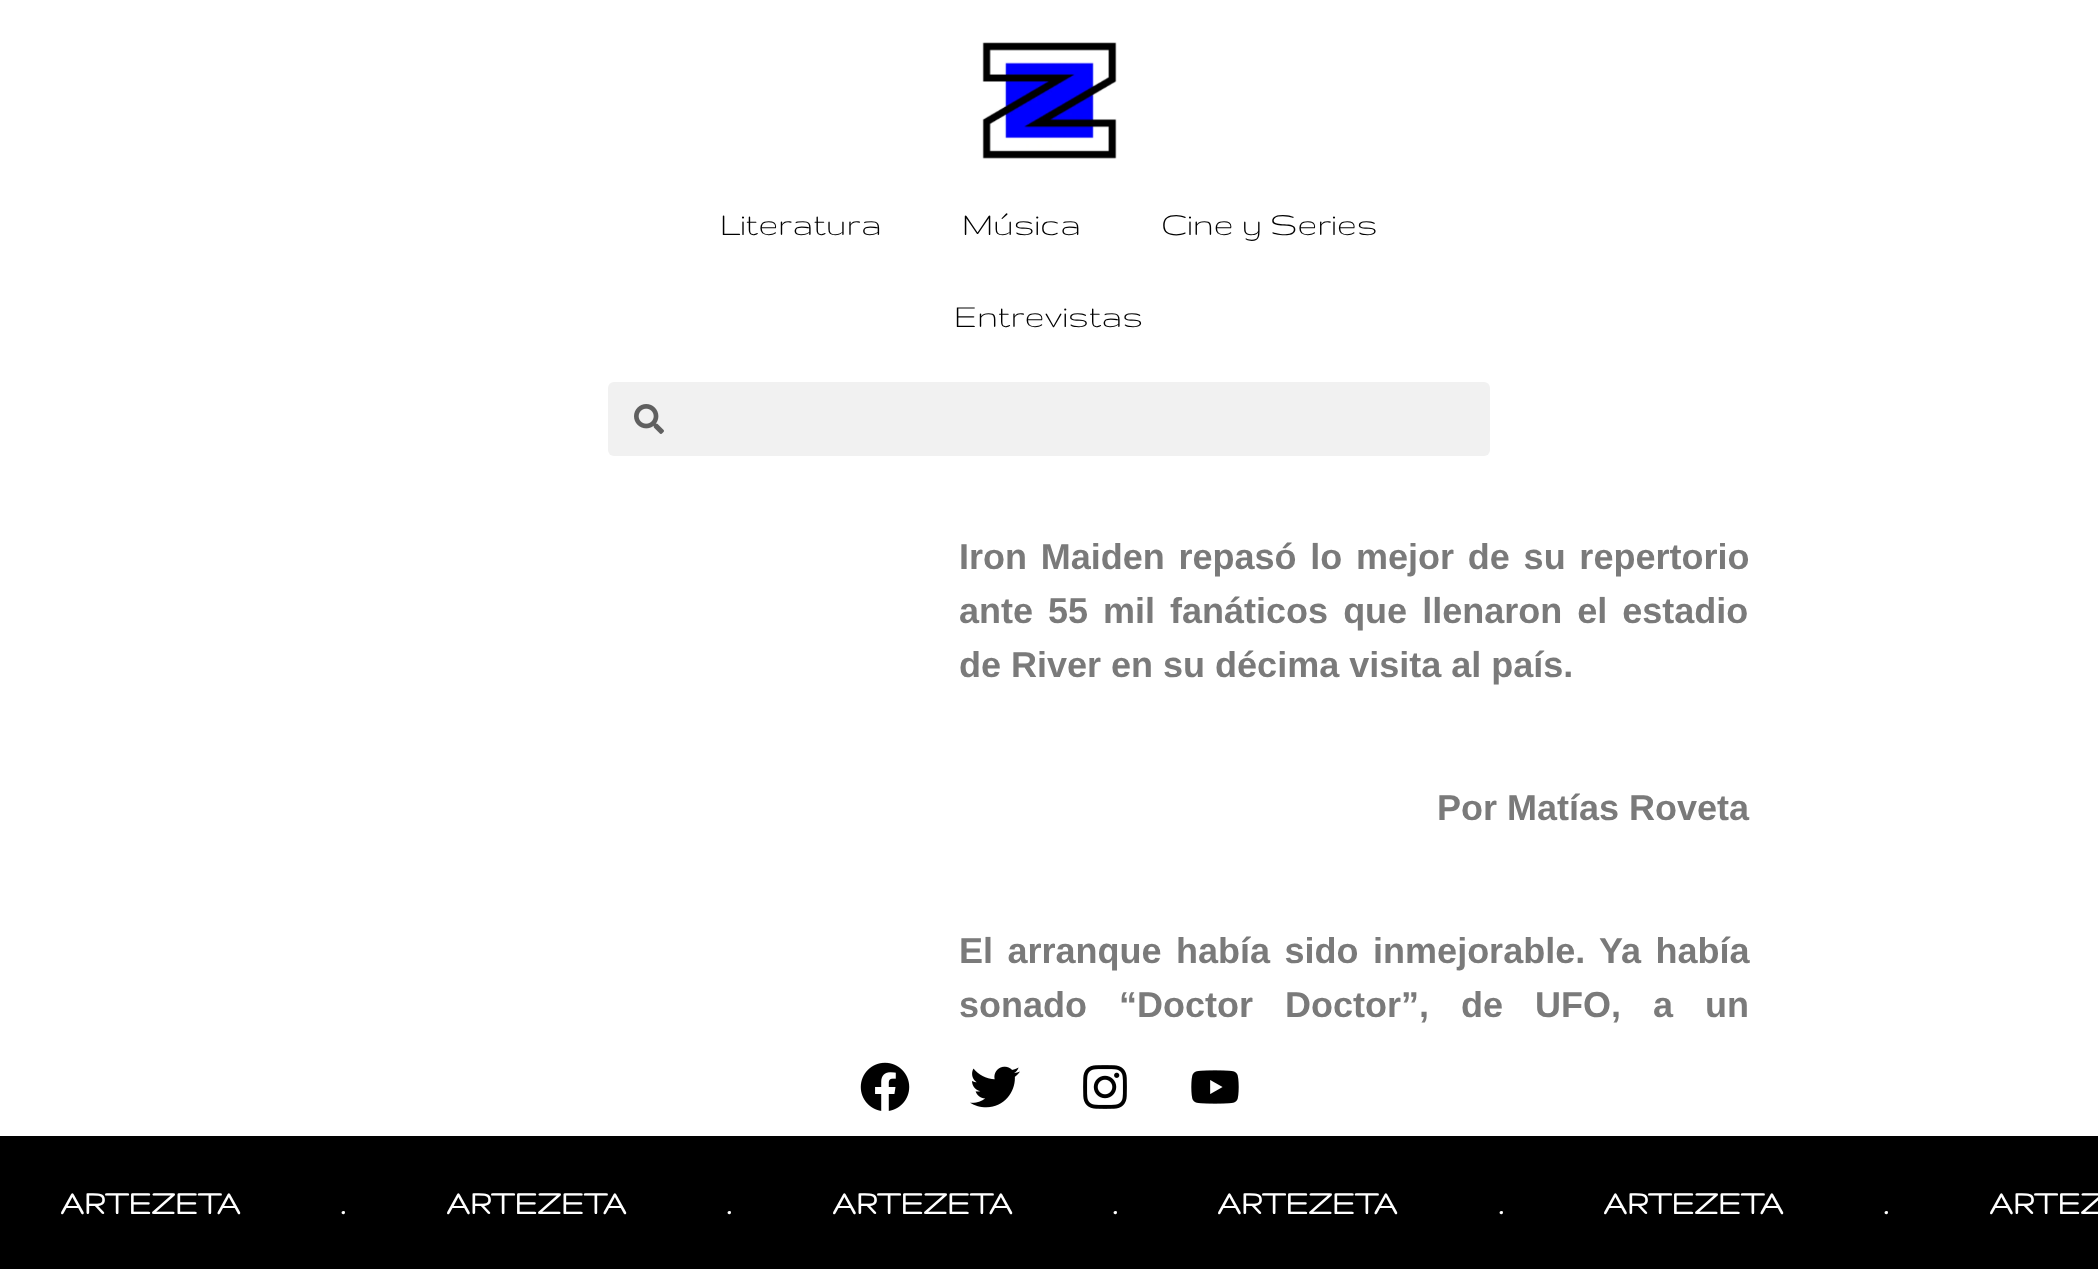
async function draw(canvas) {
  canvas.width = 2098;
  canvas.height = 1269;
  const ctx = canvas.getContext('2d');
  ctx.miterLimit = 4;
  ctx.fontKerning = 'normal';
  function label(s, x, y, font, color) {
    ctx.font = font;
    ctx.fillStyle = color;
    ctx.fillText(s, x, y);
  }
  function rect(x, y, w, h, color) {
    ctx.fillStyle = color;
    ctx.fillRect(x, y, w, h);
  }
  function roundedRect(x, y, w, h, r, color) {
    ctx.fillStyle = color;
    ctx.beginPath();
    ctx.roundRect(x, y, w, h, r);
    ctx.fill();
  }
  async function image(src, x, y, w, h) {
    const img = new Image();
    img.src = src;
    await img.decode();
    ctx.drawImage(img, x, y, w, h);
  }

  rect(0, 0, 2098, 1269, '#fff');
  await image('assets/img1.png', 982, 42, 135, 117);
  label('Literatura', 720, 235, '36px Gruppo', '#000');
  label('Música', 962, 235, '36px Gruppo', '#000');
  label('Cine y Series', 1161, 235, '36px Gruppo', '#000');
  label('Entrevistas', 954, 327, '36px Gruppo', '#000');
  roundedRect(608, 382, 882, 74, 6, '#f1f1f1');
  await image('assets/img2.png', 634, 404, 30, 30);
  ctx.wordSpacing = '3.75px';
  label('Iron Maiden repasó lo mejor de su repertorio', 959, 569, 'bold 36px Liberation Sans', '#7a7a7a');
  ctx.wordSpacing = '5px';
  label('ante 55 mil fanáticos que llenaron el estadio', 959, 623, 'bold 36px Liberation Sans', '#7a7a7a');
  ctx.wordSpacing = '0px';
  label('de River en su décima visita al país.', 959, 677, 'bold 36px Liberation Sans', '#7a7a7a');
  label('Por Matías Roveta', 1437, 820, 'bold 36px Liberation Sans', '#7a7a7a');
  ctx.wordSpacing = '4.5px';
  label('El arranque había sido inmejorable. Ya había', 959, 963, 'bold 36px Liberation Sans', '#7a7a7a');
  ctx.wordSpacing = '22px';
  label('sonado “Doctor Doctor”, de UFO, a un', 959, 1017, 'bold 36px Liberation Sans', '#7a7a7a');
  await image('assets/img3.png', 860, 1062, 50, 49);
  await image('assets/img4.png', 970, 1066, 50, 42);
  await image('assets/img5.png', 1083, 1065, 44, 44);
  await image('assets/img6.png', 1191, 1070, 48, 34);
  rect(0, 1136, 2098, 133, '#000');
  ctx.wordSpacing = '0px';
  label('ARTEZETA', 60, 1214, 'bold 36px Gruppo', '#fff');
  label('.', 340, 1214, 'bold 36px Gruppo', '#fff');
  label('ARTEZETA', 446, 1214, 'bold 36px Gruppo', '#fff');
  label('.', 726, 1214, 'bold 36px Gruppo', '#fff');
  label('ARTEZETA', 832, 1214, 'bold 36px Gruppo', '#fff');
  label('.', 1112, 1214, 'bold 36px Gruppo', '#fff');
  label('ARTEZETA', 1217, 1214, 'bold 36px Gruppo', '#fff');
  label('.', 1498, 1214, 'bold 36px Gruppo', '#fff');
  label('ARTEZETA', 1603, 1214, 'bold 36px Gruppo', '#fff');
  label('.', 1883, 1214, 'bold 36px Gruppo', '#fff');
  label('ARTEZ', 1989, 1214, 'bold 36px Gruppo', '#fff');
}

draw(document.querySelector('canvas'));
